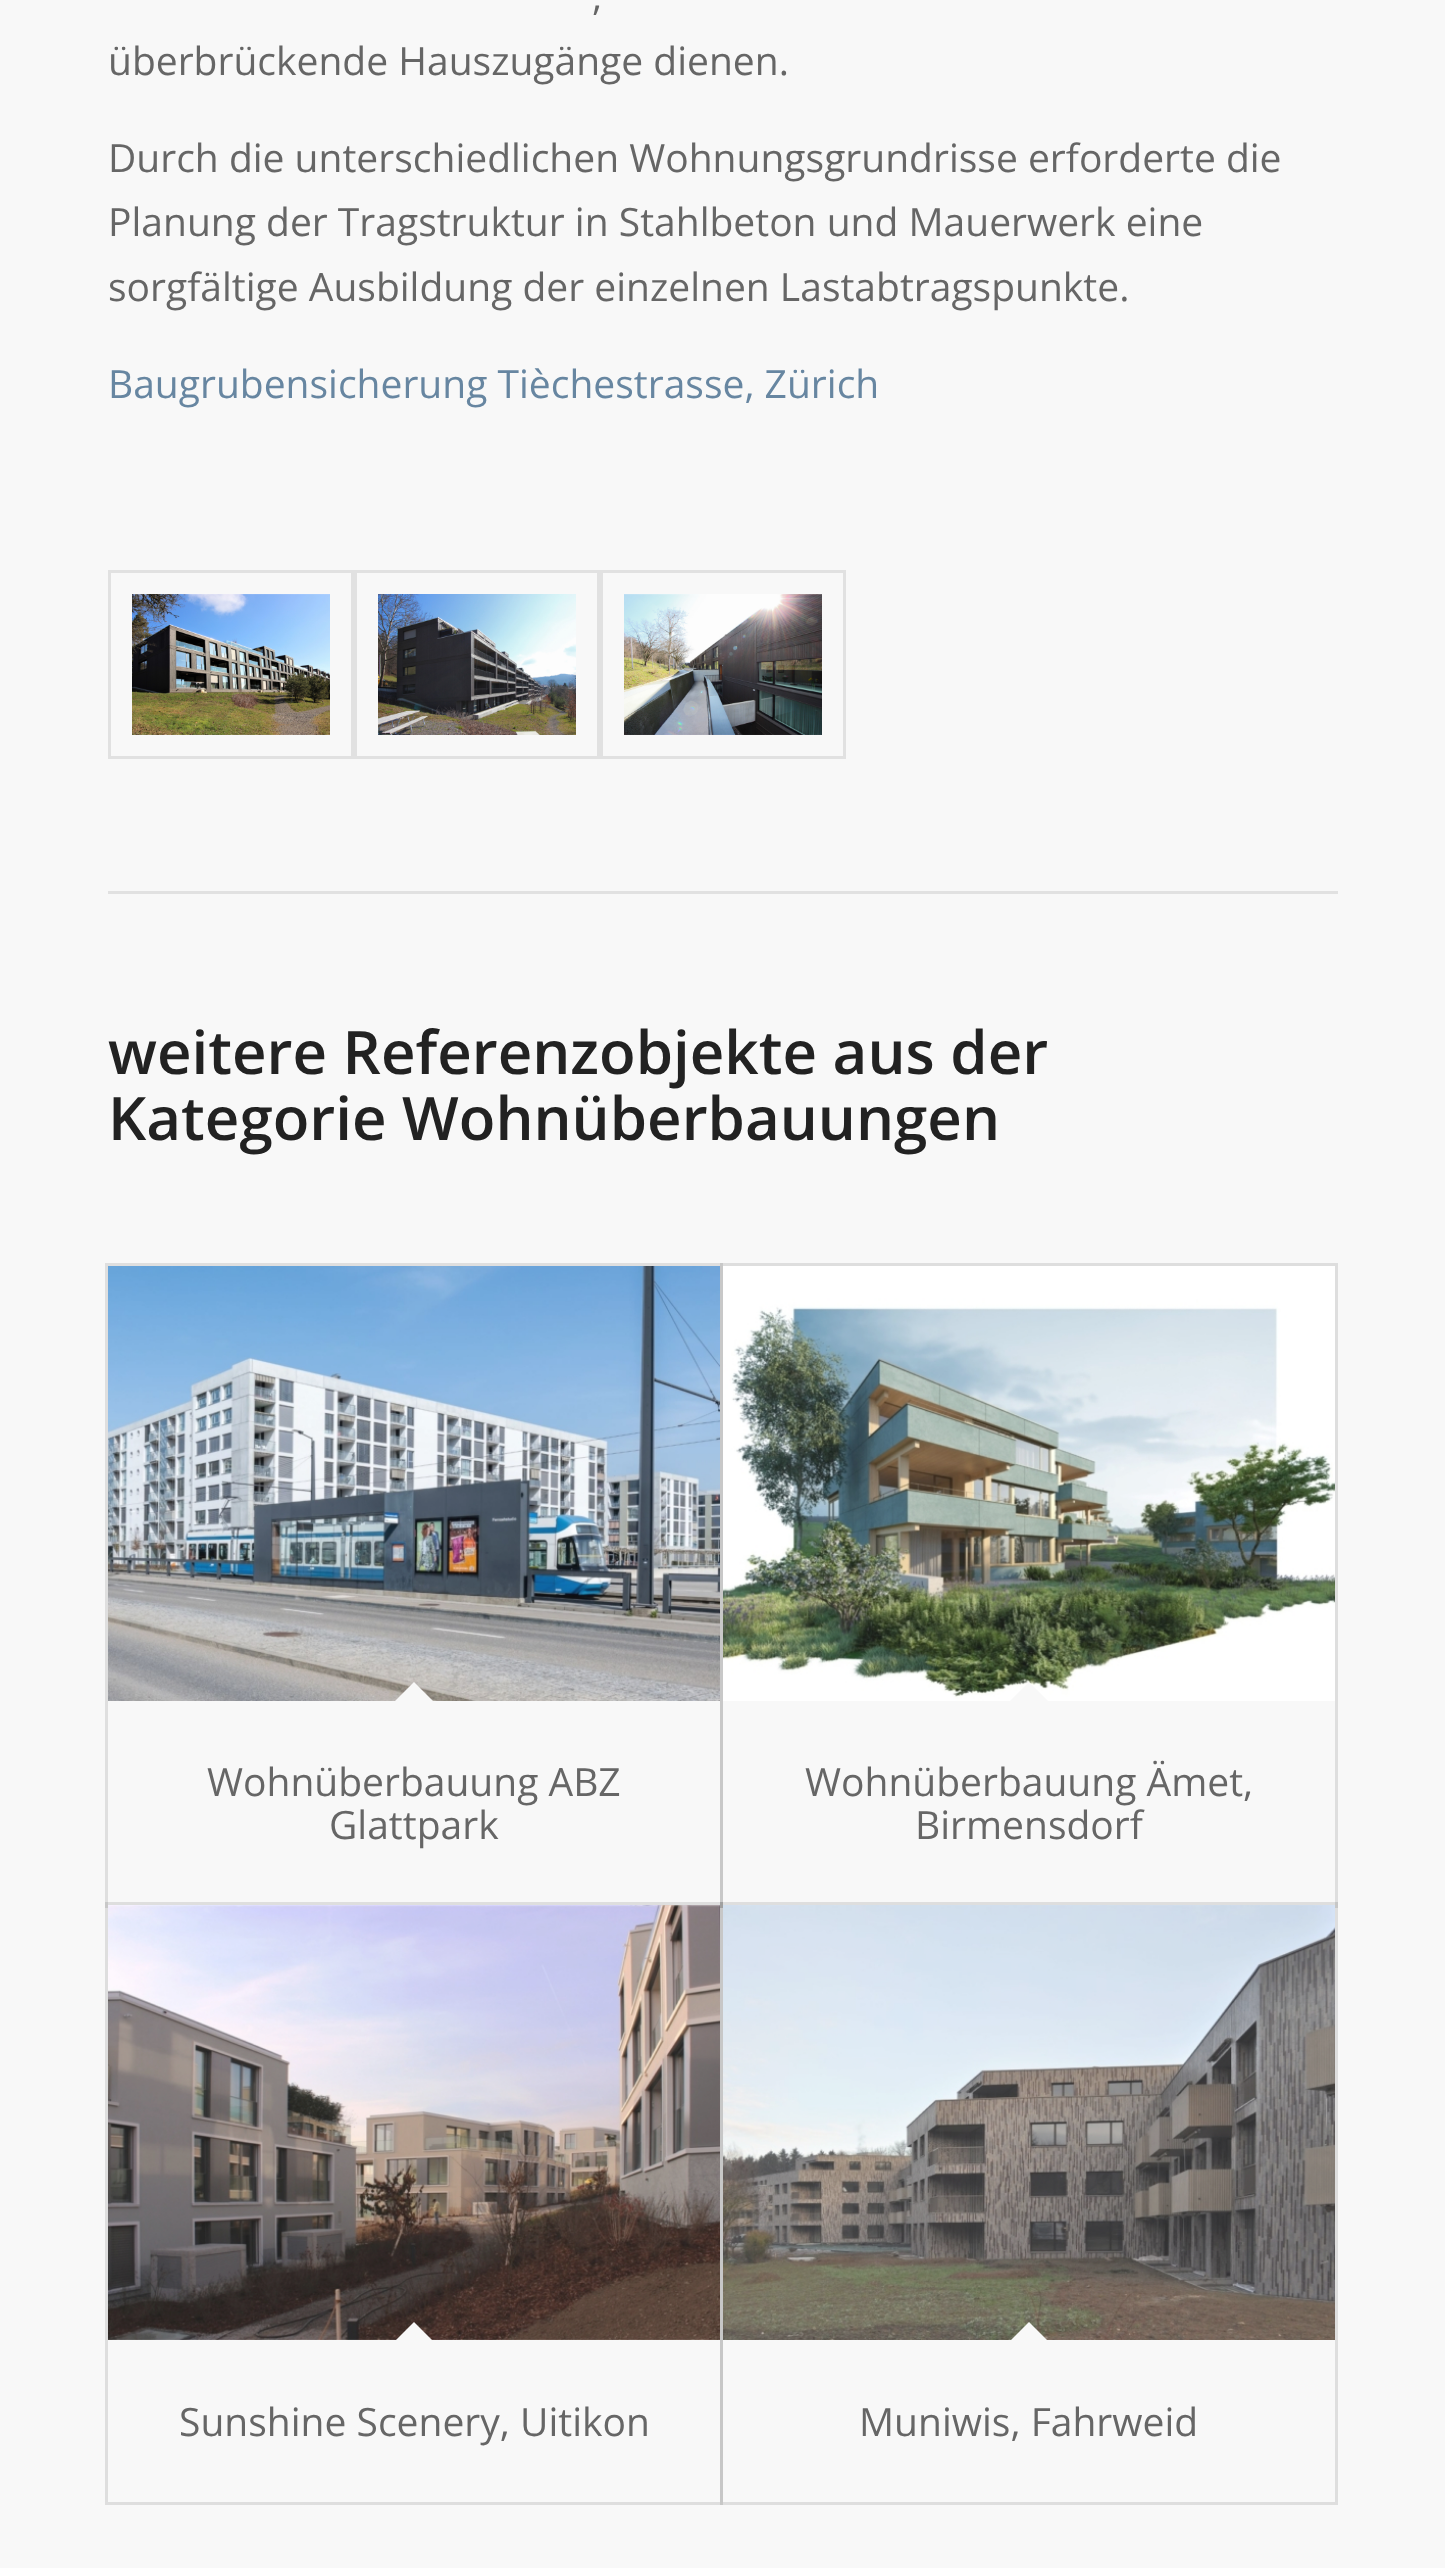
async function draw(canvas) {
  canvas.width = 1445;
  canvas.height = 2568;
  const ctx = canvas.getContext('2d');
  ctx.miterLimit = 4;
  ctx.fontKerning = 'normal';
  function label(s, x, y, font, color) {
    ctx.font = font;
    ctx.fillStyle = color;
    ctx.fillText(s, x, y);
  }
  function rect(x, y, w, h, color) {
    ctx.fillStyle = color;
    ctx.fillRect(x, y, w, h);
  }
  async function image(src, x, y, w, h) {
    const img = new Image();
    img.src = src;
    await img.decode();
    ctx.drawImage(img, x, y, w, h);
  }
  let path;

  rect(0, 0, 1445, 2568, '#f8f8f8');
  label(',', 592, 10, '39px Open Sans', '#666');
  label('überbrückende Hauszugänge dienen.', 108, 75, '39px Open Sans', '#666');
  label('Durch die unterschiedlichen Wohnungsgrundrisse erforderte die', 108, 172, '39px Open Sans', '#666');
  label('Planung der Tragstruktur in Stahlbeton und Mauerwerk eine', 108, 236, '39px Open Sans', '#666');
  label('sorgfältige Ausbildung der einzelnen Lastabtragspunkte.', 108, 301, '39px Open Sans', '#666');
  label('Baugrubensicherung Tièchestrasse, Zürich', 108, 398, '39px Open Sans', '#6786a1');
  ctx.strokeStyle = '#e1e1e1';
  ctx.lineWidth = 3;
  ctx.strokeRect(109.5, 571.5, 243, 186);
  await image('assets/img1.png', 132, 594, 198, 141);
  ctx.strokeRect(355.5, 571.5, 243, 186);
  await image('assets/img2.png', 378, 594, 198, 141);
  ctx.strokeRect(601.5, 571.5, 243, 186);
  await image('assets/img3.png', 624, 594, 198, 141);
  rect(108, 891, 1230, 3, '#e1e1e1');
  label('weitere Referenzobjekte aus der', 108, 1074, '600 60px Open Sans', '#222');
  label('Kategorie Wohnüberbauungen', 108, 1140, '600 60px Open Sans', '#222');
  ctx.strokeStyle = '#dfdfdf';
  ctx.strokeRect(106.5, 1264.5, 615, 642);
  await image('assets/img4.png', 108, 1266, 612, 435);
  ctx.fillStyle = '#f8f8f8';
  path = new Path2D('M414 1682L435 1703L414 1725L393 1703Z');
  ctx.fill(path);
  label('Wohnüberbauung ABZ', 207, 1796, '39px Open Sans', '#666');
  label('Glattpark', 329, 1839, '39px Open Sans', '#666');
  ctx.strokeStyle = '#0000001a';
  ctx.strokeRect(721.5, 1264.5, 615, 642);
  await image('assets/img5.png', 723, 1266, 612, 435);
  ctx.fillStyle = '#f8f8f8';
  path = new Path2D('M1029 1682L1050 1703L1029 1725L1008 1703Z');
  ctx.fill(path);
  label('Wohnüberbauung Ämet,', 805, 1796, '39px Open Sans', '#666');
  label('Birmensdorf', 915, 1839, '39px Open Sans', '#666');
  ctx.strokeRect(106.5, 1903.5, 615, 600);
  rect(108, 1905, 612, 3, '#f8f8f8');
  await image('assets/img6.png', 108, 1905, 612, 435);
  path = new Path2D('M414 2322L435 2343L414 2364L393 2343Z');
  ctx.fill(path);
  label('Sunshine Scenery, Uitikon', 179, 2436, '39px Open Sans', '#666');
  ctx.strokeRect(721.5, 1903.5, 615, 600);
  rect(723, 1905, 612, 3, '#f8f8f8');
  await image('assets/img7.png', 723, 1905, 612, 435);
  path = new Path2D('M1029 2322L1050 2343L1029 2364L1008 2343Z');
  ctx.fill(path);
  label('Muniwis, Fahrweid', 859, 2436, '39px Open Sans', '#666');
}

draw(document.querySelector('canvas'));
